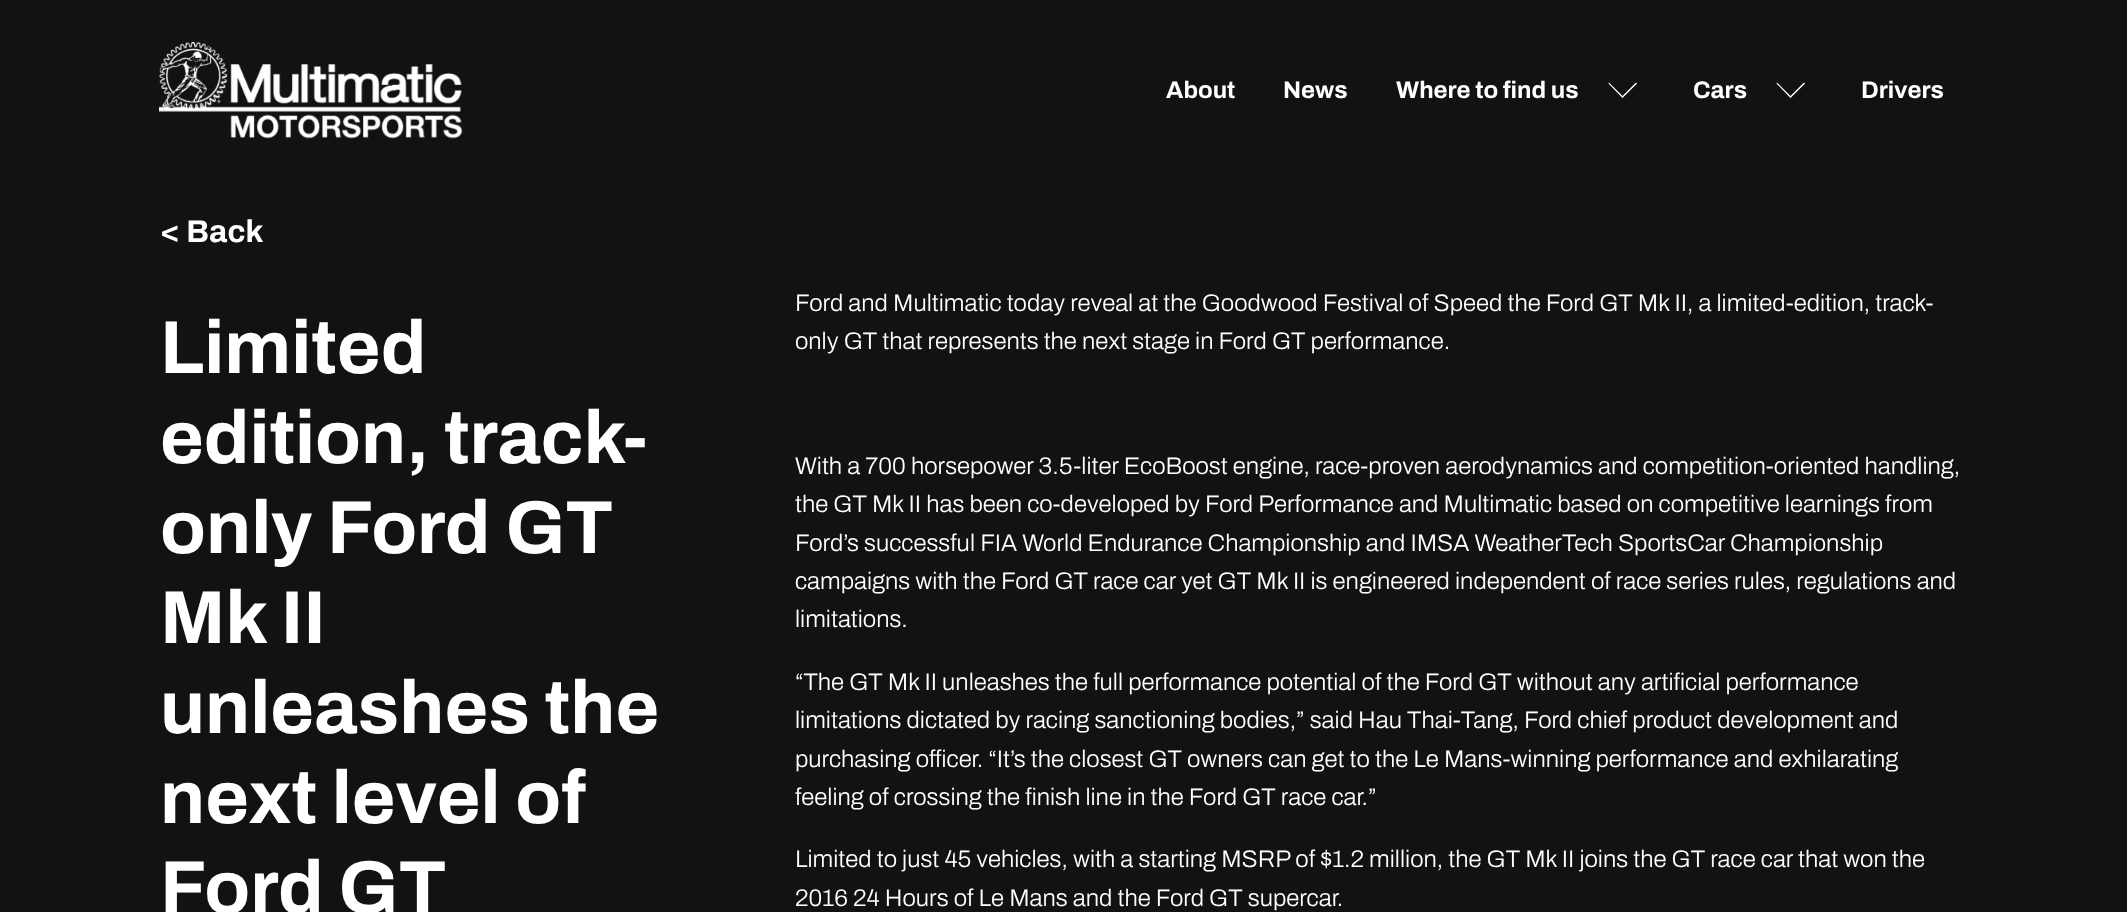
<svg xmlns="http://www.w3.org/2000/svg" xmlns:xlink="http://www.w3.org/1999/xlink" width="2127" height="912" viewBox="0 0 2127 912">
<style>
.cls-1{font:bold 24px Archivo;fill:#ffffff}
.cls-2{font:bold 31.5px Archivo;fill:#ffffff}
.cls-3{font:bold 75px Archivo;fill:#ffffff}
.cls-4{font:300 24px Archivo;fill:#ffffff}
</style>
<rect width="100%" height="100%" fill="#121212"/>
<image xlink:href="image0.png" x="159" y="42" width="304" height="97"/>
<path fill="#ffffff" d="M1608.5 83.5L1609 82.5L1622.5 96L1636 82.5L1637 83.5L1622.5 98Z"/>
<path fill="#ffffff" d="M1776.5 83.5L1777 82.5L1790.5 96L1804 82.5L1805 83.5L1790.5 98Z"/>
<text class="cls-1" x="1166" y="98">About</text>
<text class="cls-1" x="1283" y="98">News</text>
<text class="cls-1" x="1396" y="98">Where to find us</text>
<text class="cls-1" x="1693" y="98">Cars</text>
<text class="cls-1" x="1861" y="98">Drivers</text>
<text class="cls-2" x="160" y="242">&lt; Back</text>
<text class="cls-3"><tspan x="160" y="373">Limited</tspan><tspan x="160" y="463">edition, track-</tspan><tspan x="160" y="553">only Ford GT</tspan><tspan x="160" y="643">Mk II</tspan><tspan x="160" y="733">unleashes the</tspan><tspan x="160" y="823">next level of</tspan><tspan x="160" y="913">Ford GT</tspan></text>
<text class="cls-4"><tspan x="795" y="311">Ford and Multimatic today reveal at the Goodwood Festival of Speed the Ford GT Mk II, a limited-edition, track-</tspan><tspan x="795" y="349">only GT that represents the next stage in Ford GT performance.</tspan></text>
<text class="cls-4"><tspan x="795" y="474">With a 700 horsepower 3.5-liter EcoBoost engine, race-proven aerodynamics and competition-oriented handling,</tspan><tspan x="795" y="512">the GT Mk II has been co-developed by Ford Performance and Multimatic based on competitive learnings from</tspan><tspan x="795" y="551">Ford’s successful FIA World Endurance Championship and IMSA WeatherTech SportsCar Championship</tspan><tspan x="795" y="589">campaigns with the Ford GT race car yet GT Mk II is engineered independent of race series rules, regulations and</tspan><tspan x="795" y="627">limitations.</tspan></text>
<text class="cls-4"><tspan x="795" y="690">“The GT Mk II unleashes the full performance potential of the Ford GT without any artificial performance</tspan><tspan x="795" y="728">limitations dictated by racing sanctioning bodies,” said Hau Thai-Tang, Ford chief product development and</tspan><tspan x="795" y="767">purchasing officer. “It’s the closest GT owners can get to the Le Mans-winning performance and exhilarating</tspan><tspan x="795" y="805">feeling of crossing the finish line in the Ford GT race car.”</tspan></text>
<text class="cls-4"><tspan x="795" y="867">Limited to just 45 vehicles, with a starting MSRP of $1.2 million, the GT Mk II joins the GT race car that won the</tspan><tspan x="795" y="906">2016 24 Hours of Le Mans and the Ford GT supercar.</tspan></text>
</svg>
